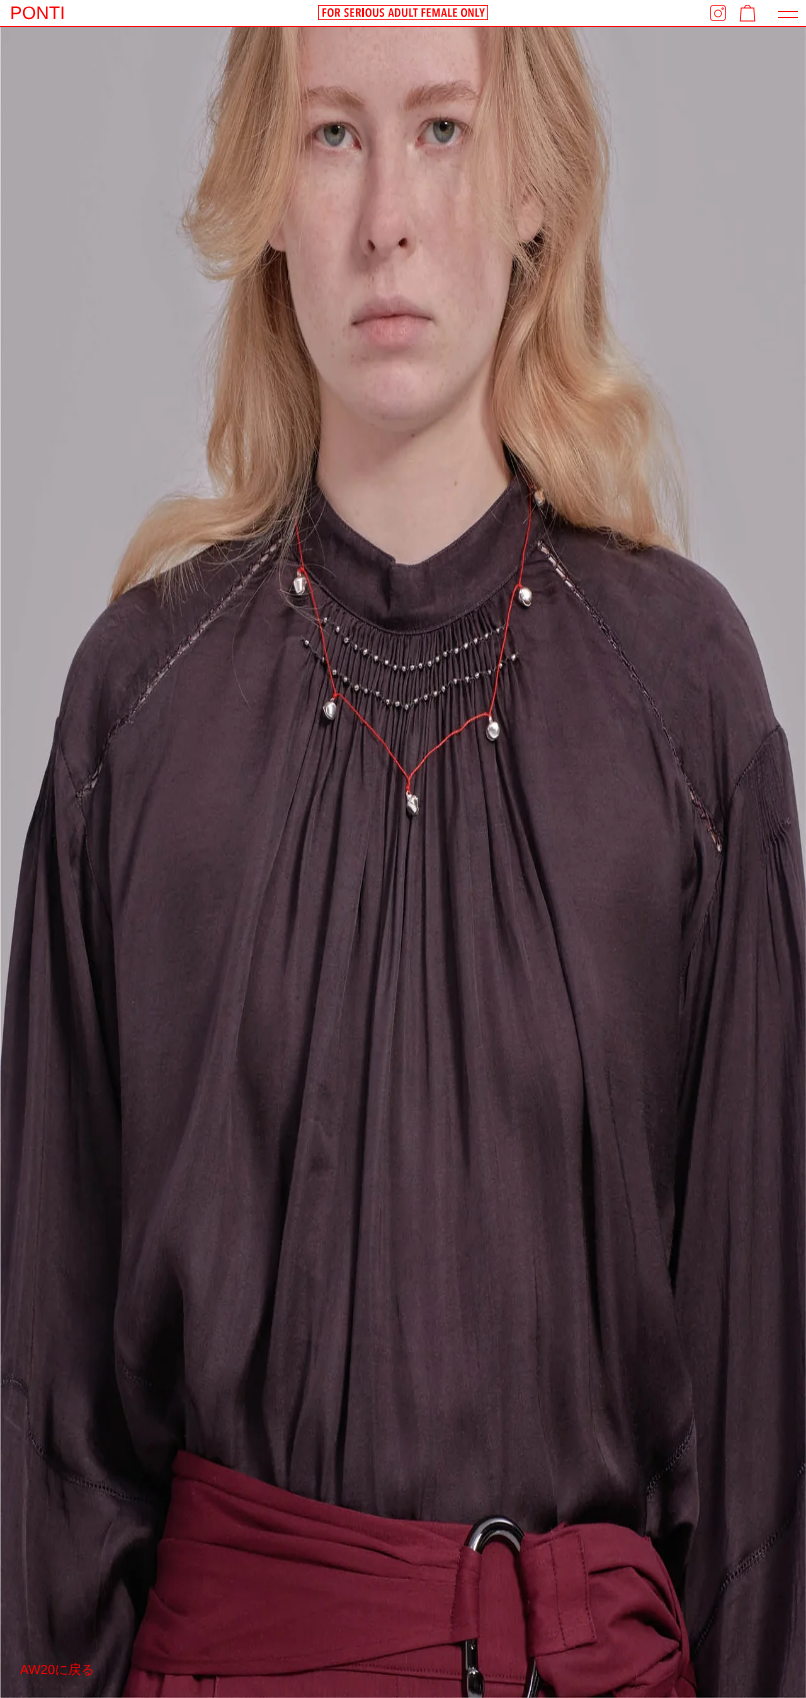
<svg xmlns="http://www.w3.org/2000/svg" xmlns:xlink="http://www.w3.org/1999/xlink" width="806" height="1698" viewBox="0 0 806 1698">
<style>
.cls-1{font:18px Liberation Sans;fill:#ff0000}
.cls-2{font:13px Liberation Sans;fill:#ff0000}
.cls-3{font:500 13px WenQuanYi Zen Hei;fill:#ff0000}
</style>
<rect width="100%" height="100%" fill="#ffffff"/>
<rect fill="#ff0000" x="0" y="26" width="806" height="1"/>
<image xlink:href="image0.png" x="318" y="5" width="170" height="15"/>
<image xlink:href="image1.png" x="710" y="5" width="16" height="16"/>
<image xlink:href="image2.png" x="739" y="5" width="17" height="17"/>
<rect fill="#ff0000" x="778" y="11" width="20" height="1"/>
<rect fill="#ff0000" x="778" y="17" width="20" height="1"/>
<image xlink:href="image3.png" x="0" y="27" width="806" height="1671"/>
<text class="cls-1" x="10" y="19">PONTI</text>
<text class="cls-2" x="20" y="1674">AW20</text>
<text class="cls-3" x="55" y="1674">に戻る</text>
</svg>
